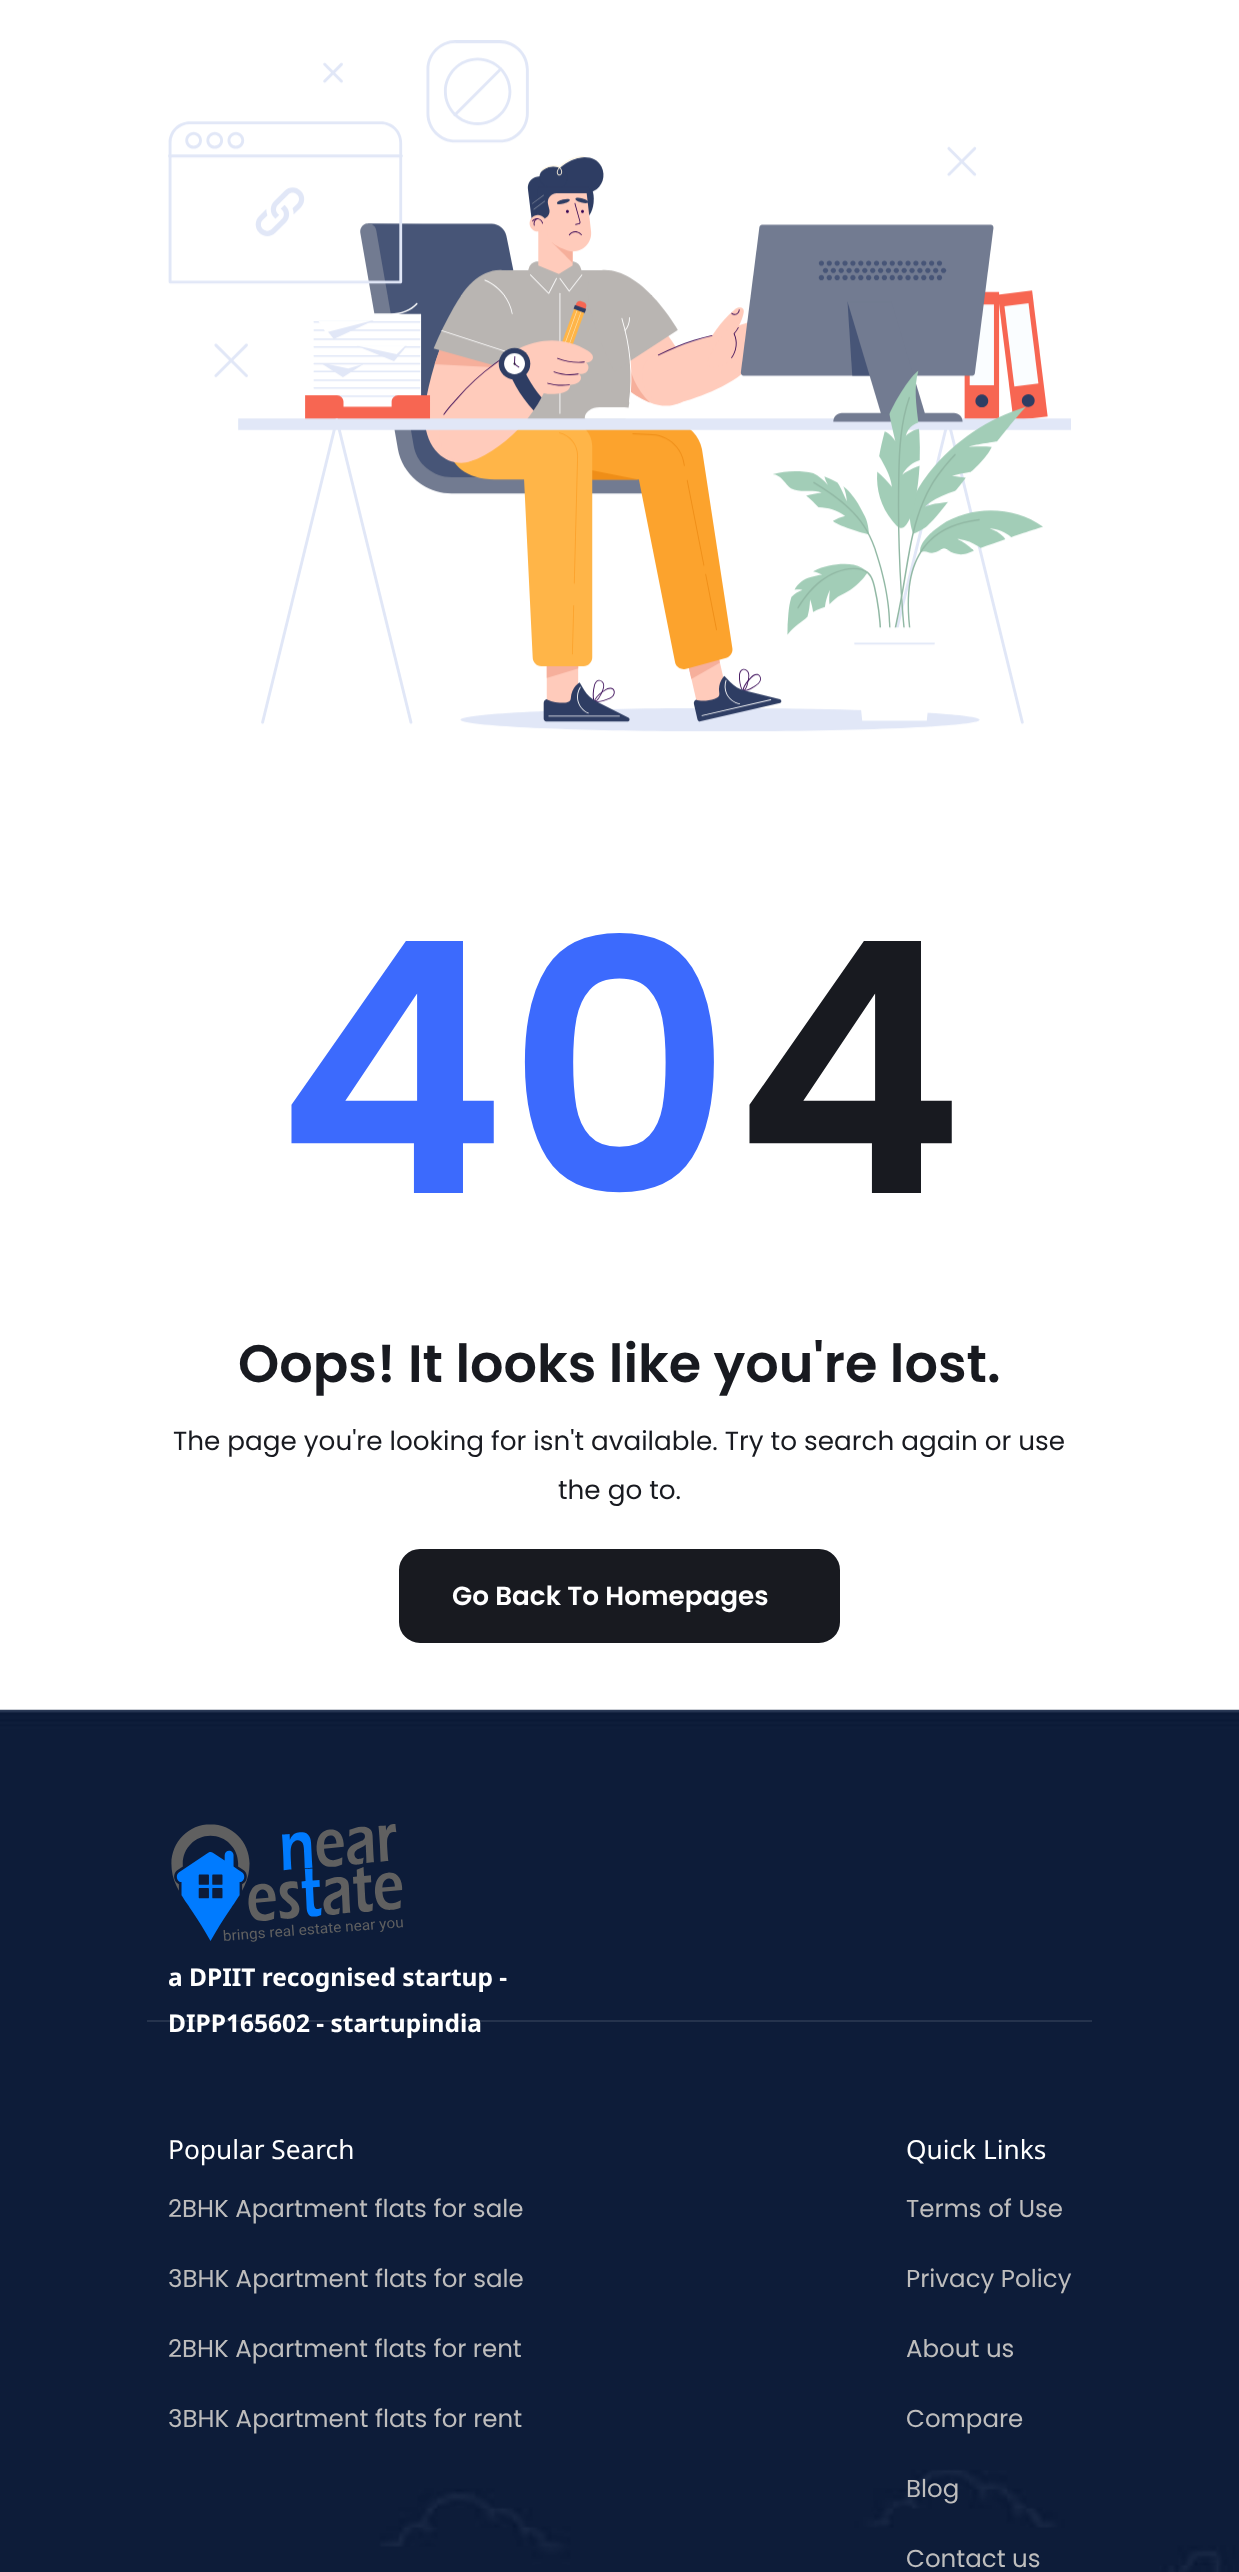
<svg xmlns="http://www.w3.org/2000/svg" xmlns:xlink="http://www.w3.org/1999/xlink" width="1239" height="2572" viewBox="0 0 1239 2572">
<style>
.cls-1{font:600 350px Poppins;fill:#3c6afd}
.cls-2{font:600 350px Poppins;fill:#181a20}
.cls-3{font:600 52.5px Poppins;fill:#181a20}
.cls-4{font:26.25px Poppins;fill:#181a20}
.cls-5{font:600 26.25px Poppins;fill:#ffffff}
.cls-6{font:bold 24.5px Noto Sans;fill:#ffffff}
.cls-7{font:26.25px Noto Sans;fill:#ffffff}
.cls-8{font:24.5px Poppins;fill:#bebdbd}
</style>
<rect width="100%" height="100%" fill="#ffffff"/>
<image xlink:href="image0.png" x="168" y="40" width="903" height="692"/>
<rect fill="#181a20" stroke="#181a20" stroke-width="2" x="400" y="1550" width="439" height="92" rx="20"/>
<image xlink:href="image1.png" x="0" y="1709" width="1239" height="863"/>
<rect fill="#25334d" x="147" y="2020" width="945" height="2"/>
<image xlink:href="image2.png" x="171" y="1824" width="232" height="118"/>
<text class="cls-1" x="275" y="1193">40</text>
<text class="cls-2" x="733" y="1193">4</text>
<text class="cls-3" x="238" y="1382">Oops! It looks like you're lost.</text>
<text class="cls-4" x="173" y="1450">The page you're looking for isn't available. Try to search again or use</text>
<text class="cls-4" x="558" y="1499">the go to.</text>
<text class="cls-5" x="452" y="1605">Go Back To Homepages</text>
<text class="cls-6"><tspan x="168" y="1986">a DPIIT recognised startup -</tspan><tspan x="168" y="2032">DIPP165602 - startupindia</tspan></text>
<text class="cls-7" x="168" y="2159">Popular Search</text>
<text class="cls-8" x="168" y="2217">2BHK Apartment flats for sale</text>
<text class="cls-8" x="168" y="2287">3BHK Apartment flats for sale</text>
<text class="cls-8" x="168" y="2357">2BHK Apartment flats for rent</text>
<text class="cls-8" x="168" y="2427">3BHK Apartment flats for rent</text>
<text class="cls-7" x="906" y="2159">Quick Links</text>
<text class="cls-8" x="906" y="2217">Terms of Use</text>
<text class="cls-8" x="906" y="2287">Privacy Policy</text>
<text class="cls-8" x="906" y="2357">About us</text>
<text class="cls-8" x="906" y="2427">Compare</text>
<text class="cls-8" x="906" y="2497">Blog</text>
<text class="cls-8" x="906" y="2567">Contact us</text>
</svg>
